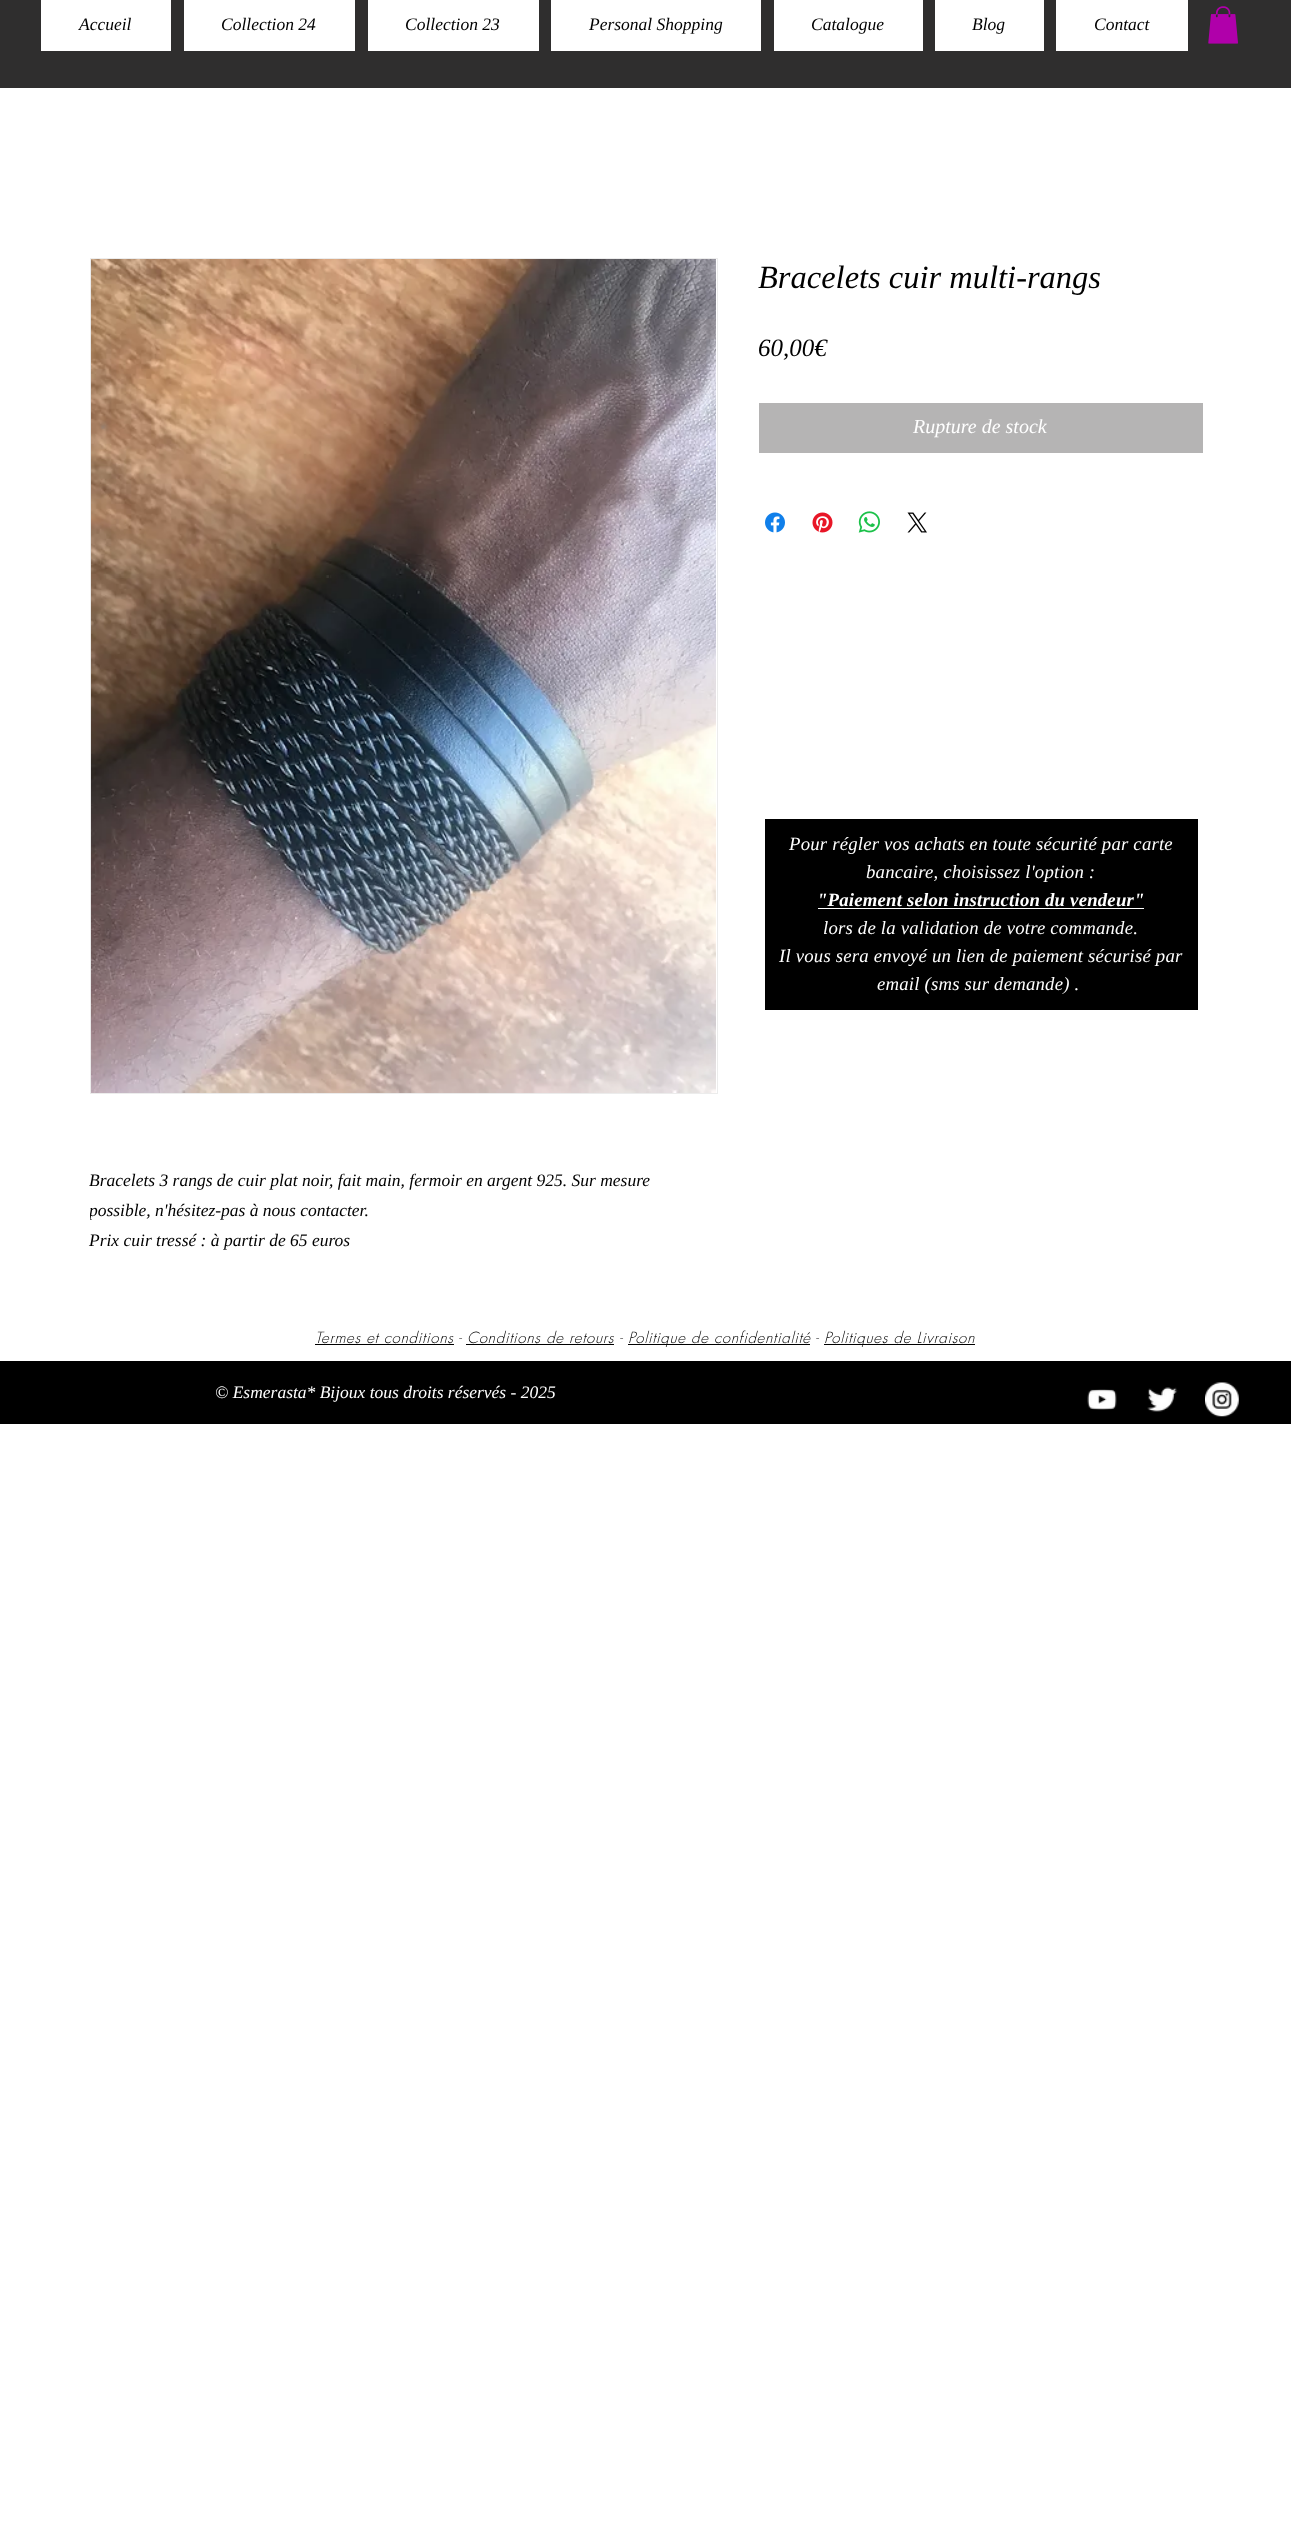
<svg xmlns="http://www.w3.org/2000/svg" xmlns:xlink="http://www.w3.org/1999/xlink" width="1291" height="2522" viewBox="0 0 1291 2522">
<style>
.cls-1{font:italic 17.5px Liberation Serif;fill:#000000}
.cls-2{font:italic 32.5px Liberation Serif;fill:#000000}
.cls-3{font:italic 25px Liberation Serif;fill:#000000}
.cls-4{font:italic 20px Liberation Serif;fill:#ffffff}
.cls-5{font:italic 18.75px Liberation Serif;letter-spacing:0.2px;fill:#ffffff}
.cls-6{font:italic bold 18.75px Liberation Serif;letter-spacing:0.2px;fill:#ffffff}
.cls-7{font:italic 300 15px futura;letter-spacing:0.75px;fill:#000000}
.cls-8{font:italic 17.5px Liberation Serif;fill:#ffffff}
</style>
<defs>
<clipPath id="clip1"><rect x="90" y="1166" width="625" height="90"/></clipPath>
</defs>
<rect width="100%" height="100%" fill="#ffffff"/>
<rect fill="#2f2e2e" x="0" y="0" width="1291" height="88"/>
<rect fill="#ffffff" x="41" y="0" width="130" height="51"/>
<rect fill="#ffffff" x="184" y="0" width="171" height="51"/>
<rect fill="#ffffff" x="368" y="0" width="171" height="51"/>
<rect fill="#ffffff" x="551" y="0" width="210" height="51"/>
<rect fill="#ffffff" x="774" y="0" width="149" height="51"/>
<rect fill="#ffffff" x="935" y="0" width="109" height="51"/>
<rect fill="#ffffff" x="1056" y="0" width="132" height="51"/>
<image xlink:href="image0.png" x="1208" y="6" width="30" height="38"/>
<rect fill="#b5b4b4" x="759" y="403" width="444" height="50"/>
<image xlink:href="image1.png" x="765" y="512" width="20" height="21"/>
<image xlink:href="image2.png" x="812" y="512" width="21" height="21"/>
<image xlink:href="image3.png" x="858" y="511" width="22" height="22"/>
<image xlink:href="image4.png" x="907" y="512" width="20" height="21"/>
<rect fill="none" stroke="#ececec" x="90.5" y="258.5" width="627" height="835"/>
<image xlink:href="image5.png" x="91" y="259" width="625" height="834"/>
<rect fill="#000000" x="765" y="819" width="433" height="191"/>
<rect fill="#ffffff" x="818" y="908" width="326" height="1"/>
<rect fill="#000000" x="315" y="1344" width="139" height="1"/>
<rect fill="#000000" x="466" y="1344" width="148" height="1"/>
<rect fill="#000000" x="628" y="1344" width="182" height="1"/>
<rect fill="#000000" x="824" y="1344" width="151" height="1"/>
<rect fill="#000000" x="0" y="1361" width="1291" height="63"/>
<image xlink:href="image6.png" x="1087" y="1389" width="30" height="21"/>
<image xlink:href="image7.png" x="1147" y="1387" width="31" height="25"/>
<image xlink:href="image8.png" x="1205" y="1382" width="34" height="35"/>
<text class="cls-1" x="79" y="30">Accueil</text>
<text class="cls-1" x="221" y="30">Collection 24</text>
<text class="cls-1" x="405" y="30">Collection 23</text>
<text class="cls-1" x="589" y="30">Personal Shopping</text>
<text class="cls-1" x="811" y="30">Catalogue</text>
<text class="cls-1" x="972" y="30">Blog</text>
<text class="cls-1" x="1094" y="30">Contact</text>
<text class="cls-2" x="758" y="288">Bracelets cuir multi-rangs</text>
<text class="cls-3" x="758" y="356">60,00€</text>
<text class="cls-4" x="913" y="433">Rupture de stock</text>
<text class="cls-1" x="89" y="1186">Bracelets 3 rangs de cuir plat noir, fait main, fermoir en argent 925. Sur mesure</text>
<g clip-path="url(#clip1)">
<text class="cls-1" x="89" y="1216">possible, n'hésitez-pas à nous contacter.</text>
</g>
<text class="cls-1" x="89" y="1246">Prix cuir tressé : à partir de 65 euros</text>
<text class="cls-5" x="789" y="850">Pour régler vos achats en toute sécurité par carte</text>
<text class="cls-5" x="866" y="878">bancaire, choisissez l'option :</text>
<text class="cls-6" x="817" y="906">"Paiement selon instruction du vendeur"</text>
<text class="cls-5" x="823" y="934">lors de la validation de votre commande.</text>
<text class="cls-5" x="779" y="962">Il vous sera envoyé un lien de paiement sécurisé par</text>
<text class="cls-5" x="877" y="990">email (sms sur demande) .</text>
<text class="cls-7" x="315" y="1343">Termes et conditions</text>
<text class="cls-7" x="458" y="1343">-</text>
<text class="cls-7" x="467" y="1343">Conditions de retours</text>
<text class="cls-7" x="619" y="1343">-</text>
<text class="cls-7" x="628" y="1343">Politique de confidentialité</text>
<text class="cls-7" x="815" y="1343">-</text>
<text class="cls-7" x="824" y="1343">Politiques de Livraison</text>
<text class="cls-8" x="215" y="1398">© Esmerasta* Bijoux tous droits réservés - 2025</text>
</svg>
